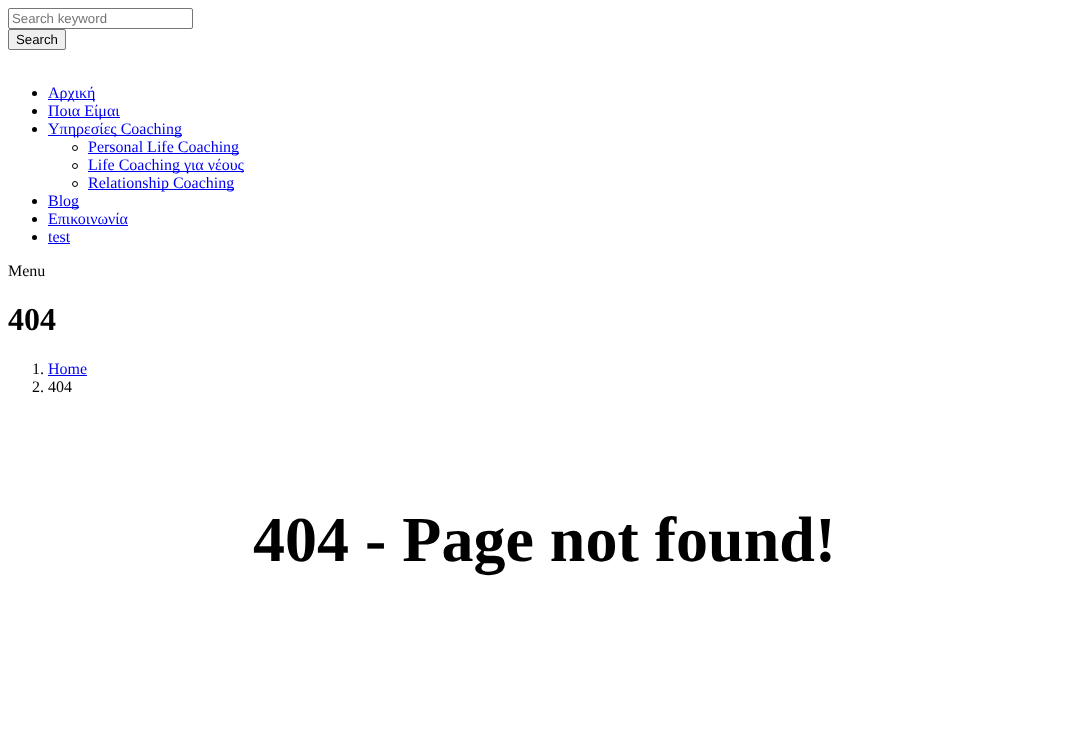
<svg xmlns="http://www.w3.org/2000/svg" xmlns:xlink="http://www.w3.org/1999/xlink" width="1090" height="752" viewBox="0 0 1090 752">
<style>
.cls-1{font:13.25px Liberation Sans;fill:#757575}
.cls-2{font:13.25px Liberation Sans;fill:#000000}
.cls-3{font:16px Liberation Serif;fill:#0000ee}
.cls-4{font:16px Liberation Serif;fill:#000000}
.cls-5{font:bold 32px Liberation Serif;fill:#000000}
.cls-6{font:bold 64px Liberation Serif;fill:#000000}
</style>
<rect width="100%" height="100%" fill="#ffffff"/>
<rect fill="none" stroke="#767676" x="8.5" y="8.5" width="184" height="20" rx="1.5"/>
<rect fill="#efefef" stroke="#767676" x="8.5" y="29.5" width="57" height="20" rx="1.5"/>
<circle fill="#000000" cx="34.5" cy="93.5" r="2.5"/>
<rect fill="#0000ee" x="48" y="99" width="47" height="1"/>
<circle fill="#000000" cx="34.5" cy="111.5" r="2.5"/>
<rect fill="#0000ee" x="48" y="117" width="72" height="1"/>
<circle fill="#000000" cx="34.5" cy="129.5" r="2.5"/>
<rect fill="#0000ee" x="48" y="135" width="134" height="1"/>
<circle fill="none" stroke="#000000" cx="75" cy="148" r="2.5"/>
<rect fill="#0000ee" x="88" y="153" width="151" height="1"/>
<circle fill="none" stroke="#000000" cx="75" cy="166" r="2.5"/>
<rect fill="#0000ee" x="88" y="171" width="156" height="1"/>
<circle fill="none" stroke="#000000" cx="75" cy="184" r="2.5"/>
<rect fill="#0000ee" x="88" y="189" width="146" height="1"/>
<circle fill="#000000" cx="34.5" cy="201.5" r="2.5"/>
<rect fill="#0000ee" x="48" y="207" width="31" height="1"/>
<circle fill="#000000" cx="34.5" cy="219.5" r="2.5"/>
<rect fill="#0000ee" x="48" y="225" width="80" height="1"/>
<circle fill="#000000" cx="34.5" cy="237.5" r="2.5"/>
<rect fill="#0000ee" x="48" y="243" width="22" height="1"/>
<rect fill="#0000ee" x="48" y="375" width="39" height="1"/>
<text class="cls-1" x="12" y="23">Search keyword</text>
<text class="cls-2" x="16" y="44">Search</text>
<text class="cls-3"><tspan x="48" y="98">Αρχική</tspan><tspan x="48" y="116">Ποια Είμαι</tspan><tspan x="48" y="134">Υπηρεσίες Coaching</tspan></text>
<text class="cls-3"><tspan x="88" y="152">Personal Life Coaching</tspan><tspan x="88" y="170">Life Coaching για νέους</tspan><tspan x="88" y="188">Relationship Coaching</tspan></text>
<text class="cls-3"><tspan x="48" y="206">Blog</tspan><tspan x="48" y="224">Επικοινωνία</tspan><tspan x="48" y="242">test</tspan></text>
<text class="cls-4" x="8" y="276">Menu</text>
<text class="cls-5" x="8" y="330">404</text>
<text class="cls-4" x="32" y="374">1.</text>
<text class="cls-3" x="48" y="374">Home</text>
<text class="cls-4" x="32" y="392">2. 404</text>
<text class="cls-6" x="253" y="561">404 - Page not found!</text>
</svg>
